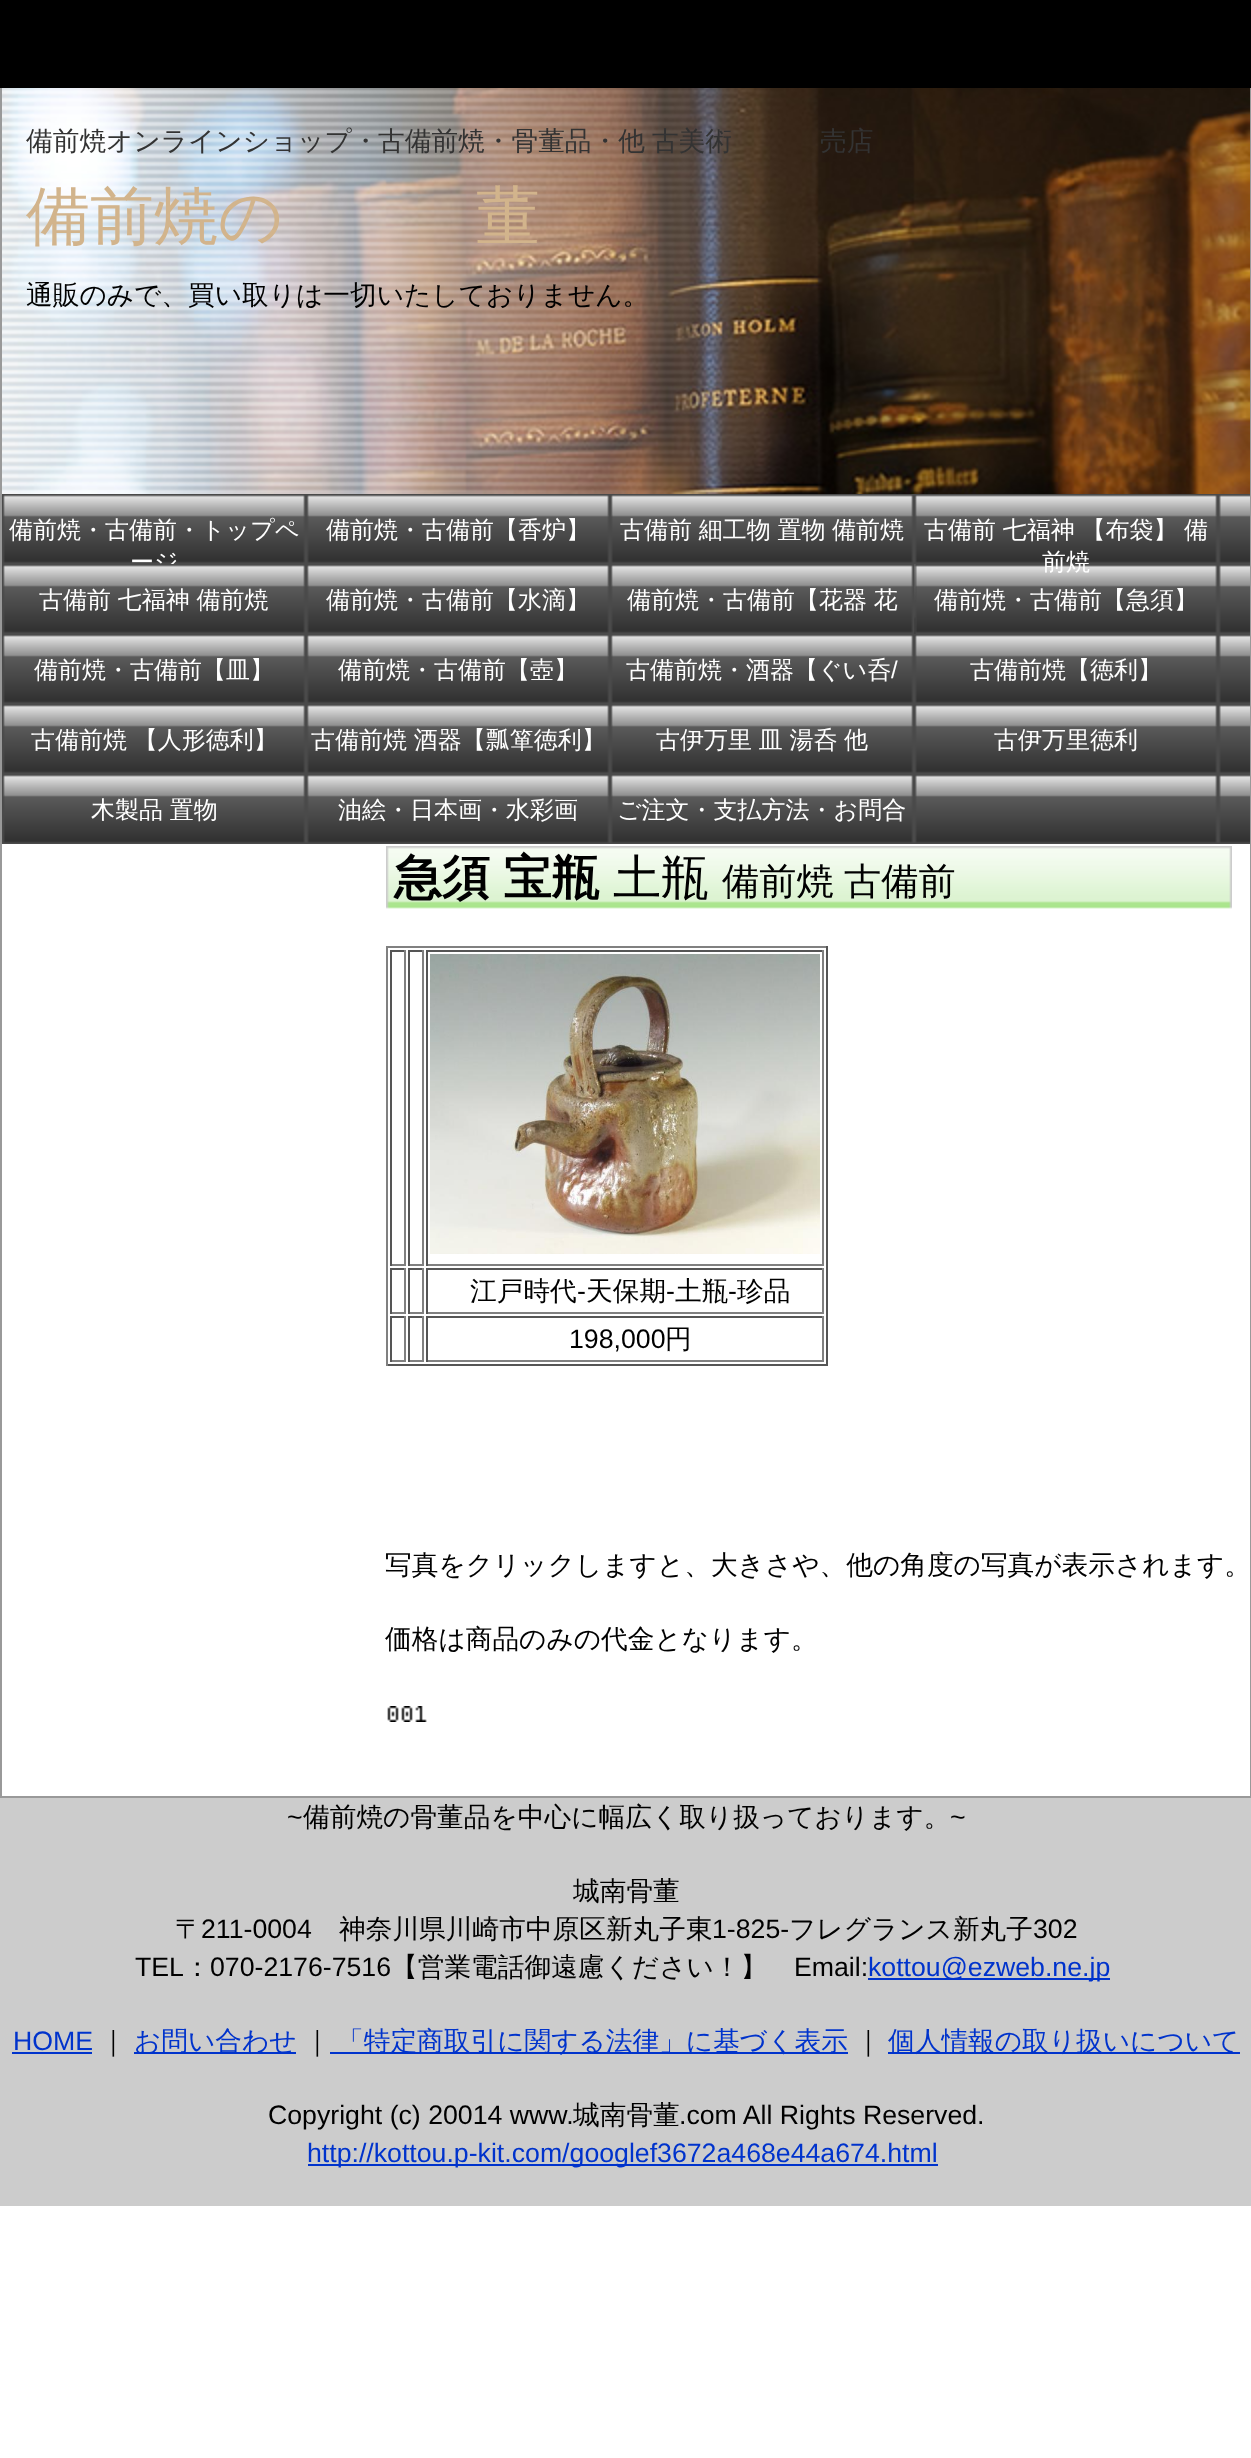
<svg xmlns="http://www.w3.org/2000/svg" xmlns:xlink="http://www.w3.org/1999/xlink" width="1251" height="2458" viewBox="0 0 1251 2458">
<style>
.cls-1{font:500 26.7px WenQuanYi Zen Hei;fill:#333333}
.cls-2{font:500 64px WenQuanYi Zen Hei;fill:#d2b48c}
.cls-3{font:500 26.7px WenQuanYi Zen Hei;fill:#000000}
.cls-4{font:500 24px WenQuanYi Zen Hei;fill:#ffffff}
.cls-5{font:24px Liberation Sans;fill:#ffffff}
.cls-6{font:bold 48px WenQuanYi Zen Hei;fill:#000000}
.cls-7{font:500 48px WenQuanYi Zen Hei;fill:#000000}
.cls-8{font:500 37.25px WenQuanYi Zen Hei;fill:#000000}
.cls-9{font:26.7px Liberation Sans;fill:#000000}
.cls-10{font:26.7px Liberation Sans;fill:#0033cc}
.cls-11{font:500 26.7px WenQuanYi Zen Hei;fill:#0033cc}
</style>
<rect width="100%" height="100%" fill="#ffffff"/>
<rect fill="none" stroke="#999999" stroke-width="2" x="1" y="1" width="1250" height="1796"/>
<rect fill="#000000" x="0" y="0" width="1251" height="88"/>
<rect fill="#cccccc" x="0" y="1798" width="1251" height="408"/>
<image xlink:href="image0.png" x="2" y="88" width="1248" height="406"/>
<image xlink:href="image1.png" x="2" y="494" width="1248" height="350"/>
<image xlink:href="image2.png" x="4" y="495" width="301" height="20"/>
<image xlink:href="image2.png" x="308" y="495" width="301" height="20"/>
<image xlink:href="image2.png" x="612" y="495" width="301" height="20"/>
<image xlink:href="image2.png" x="916" y="495" width="301" height="20"/>
<image xlink:href="image2.png" x="308" y="565" width="301" height="20"/>
<image xlink:href="image2.png" x="612" y="565" width="301" height="20"/>
<image xlink:href="image4.png" x="914" y="564" width="2" height="70"/>
<image xlink:href="image2.png" x="4" y="635" width="301" height="20"/>
<image xlink:href="image2.png" x="308" y="635" width="301" height="20"/>
<image xlink:href="image3.png" x="612" y="634" width="301" height="21"/>
<image xlink:href="image2.png" x="916" y="635" width="301" height="20"/>
<image xlink:href="image2.png" x="4" y="705" width="301" height="20"/>
<image xlink:href="image2.png" x="308" y="705" width="301" height="20"/>
<image xlink:href="image3.png" x="612" y="704" width="301" height="21"/>
<image xlink:href="image2.png" x="916" y="705" width="301" height="20"/>
<image xlink:href="image2.png" x="4" y="775" width="301" height="20"/>
<image xlink:href="image2.png" x="308" y="775" width="301" height="20"/>
<image xlink:href="image2.png" x="612" y="775" width="301" height="20"/>
<image xlink:href="image5.png" x="386" y="846" width="836" height="63"/>
<image xlink:href="image6.png" x="1222" y="846" width="10" height="63"/>
<rect fill="#808080" x="386" y="946" width="442" height="2"/>
<rect fill="#555555" x="826" y="946" width="2" height="420"/>
<rect fill="#555555" x="386" y="1364" width="442" height="2"/>
<rect fill="#808080" x="386" y="946" width="2" height="420"/>
<rect fill="#555555" x="390" y="950" width="16" height="2"/>
<rect fill="#808080" x="404" y="950" width="2" height="316"/>
<rect fill="#808080" x="390" y="1264" width="16" height="2"/>
<rect fill="#555555" x="390" y="950" width="2" height="316"/>
<rect fill="#555555" x="408" y="950" width="16" height="2"/>
<rect fill="#808080" x="422" y="950" width="2" height="316"/>
<rect fill="#808080" x="408" y="1264" width="16" height="2"/>
<rect fill="#555555" x="408" y="950" width="2" height="316"/>
<rect fill="#555555" x="426" y="950" width="398" height="2"/>
<rect fill="#808080" x="822" y="950" width="2" height="316"/>
<rect fill="#808080" x="426" y="1264" width="398" height="2"/>
<rect fill="#555555" x="426" y="950" width="2" height="316"/>
<image xlink:href="image7.png" x="430" y="954" width="390" height="300"/>
<rect fill="#555555" x="390" y="1268" width="16" height="2"/>
<rect fill="#808080" x="404" y="1268" width="2" height="46"/>
<rect fill="#808080" x="390" y="1312" width="16" height="2"/>
<rect fill="#555555" x="390" y="1268" width="2" height="46"/>
<rect fill="#555555" x="408" y="1268" width="16" height="2"/>
<rect fill="#808080" x="422" y="1268" width="2" height="46"/>
<rect fill="#808080" x="408" y="1312" width="16" height="2"/>
<rect fill="#555555" x="408" y="1268" width="2" height="46"/>
<rect fill="#555555" x="426" y="1268" width="398" height="2"/>
<rect fill="#808080" x="822" y="1268" width="2" height="46"/>
<rect fill="#808080" x="426" y="1312" width="398" height="2"/>
<rect fill="#555555" x="426" y="1268" width="2" height="46"/>
<rect fill="#555555" x="390" y="1316" width="16" height="2"/>
<rect fill="#808080" x="404" y="1316" width="2" height="46"/>
<rect fill="#808080" x="390" y="1360" width="16" height="2"/>
<rect fill="#555555" x="390" y="1316" width="2" height="46"/>
<rect fill="#555555" x="408" y="1316" width="16" height="2"/>
<rect fill="#808080" x="422" y="1316" width="2" height="46"/>
<rect fill="#808080" x="408" y="1360" width="16" height="2"/>
<rect fill="#555555" x="408" y="1316" width="2" height="46"/>
<rect fill="#555555" x="426" y="1316" width="398" height="2"/>
<rect fill="#808080" x="822" y="1316" width="2" height="46"/>
<rect fill="#808080" x="426" y="1360" width="398" height="2"/>
<rect fill="#555555" x="426" y="1316" width="2" height="46"/>
<image xlink:href="image8.png" x="387" y="1706" width="40" height="16"/>
<rect fill="#0033cc" x="868" y="1978" width="242" height="2"/>
<rect fill="#0033cc" x="12" y="2052" width="80" height="2"/>
<rect fill="#0033cc" x="134" y="2052" width="162" height="2"/>
<rect fill="#0033cc" x="330" y="2052" width="518" height="2"/>
<rect fill="#0033cc" x="888" y="2052" width="352" height="2"/>
<rect fill="#0033cc" x="308" y="2164" width="630" height="2"/>
<text class="cls-1" x="26" y="150">備前焼オンラインショップ・</text>
<text class="cls-1" x="378" y="150" word-spacing="-1">古備前焼・骨董品・他 古美術</text>
<text class="cls-1" x="820" y="150" word-spacing="-1">売店</text>
<text class="cls-2" x="26" y="238">備前焼の</text>
<text class="cls-2" x="476" y="238">董</text>
<text class="cls-3" x="26" y="304">通販のみで、買い取りは一切いたしておりません。</text>
<text class="cls-4" x="9" y="538">備前焼・古備前・トップペ</text>
<text class="cls-4" x="130" y="570">ージ</text>
<text class="cls-4" x="326" y="538">備前焼・古備前【香炉】</text>
<text class="cls-4" x="620" y="538" word-spacing="-0.5">古備前 細工物 置物 備前焼</text>
<text class="cls-4" x="924" y="538" word-spacing="-0.5">古備前 七福神 【布袋】 備</text>
<text class="cls-4" x="1042" y="570">前焼</text>
<image xlink:href="image3.png" x="4" y="564" width="301" height="21"/>
<text class="cls-4" x="39" y="608" word-spacing="-0.5">古備前 七福神 備前焼</text>
<text class="cls-4" x="326" y="608">備前焼・古備前【水滴】</text>
<text class="cls-4" x="627" y="608" word-spacing="-0.5">備前焼・古備前【花器 花</text>
<text class="cls-4" x="934" y="608">備前焼・古備前【急須】</text>
<text class="cls-4" x="34" y="678">備前焼・古備前【皿】</text>
<text class="cls-4" x="338" y="678">備前焼・古備前【壺】</text>
<text class="cls-4" x="626" y="678">古備前焼・酒器【ぐい呑</text>
<text class="cls-5" x="891" y="678">/</text>
<text class="cls-4" x="970" y="678">古備前焼【徳利】</text>
<text class="cls-4" x="31" y="748" word-spacing="-0.5">古備前焼 【人形徳利】</text>
<text class="cls-4" x="311" y="748" word-spacing="-0.5">古備前焼 酒器【瓢箪徳利】</text>
<text class="cls-4" x="656" y="748" word-spacing="-0.5">古伊万里 皿 湯呑 他</text>
<text class="cls-4" x="994" y="748">古伊万里徳利</text>
<text class="cls-4" x="91" y="818" word-spacing="-0.5">木製品 置物</text>
<text class="cls-4" x="338" y="818">油絵・日本画・水彩画</text>
<text class="cls-4" x="617" y="818">ご注文・支払方法・お問合</text>
<text class="cls-6" x="394" y="894" word-spacing="-1">急須 宝瓶</text>
<text class="cls-7" x="613" y="894">土瓶</text>
<text class="cls-8" x="722" y="894" word-spacing="-1">備前焼 古備前</text>
<text class="cls-3" x="470" y="1300">江戸時代</text>
<text class="cls-9" x="577" y="1300">-</text>
<text class="cls-3" x="586" y="1300">天保期</text>
<text class="cls-9" x="666" y="1300">-</text>
<text class="cls-3" x="675" y="1300">土瓶</text>
<text class="cls-9" x="728" y="1300">-</text>
<text class="cls-3" x="737" y="1300">珍品</text>
<text class="cls-9" x="569" y="1348">198,000</text>
<text class="cls-3" x="665" y="1348">円</text>
<text class="cls-3" x="385" y="1574">写真をクリックしますと、大きさや、他の角度の写真が表示されます。</text>
<text class="cls-3" x="385" y="1648">価格は商品のみの代金となります。</text>
<text class="cls-9" x="287" y="1826">~</text>
<text class="cls-3" x="303" y="1826">備前焼の骨董品を中心に幅広く取り扱っております。</text>
<text class="cls-9" x="950" y="1826">~</text>
<text class="cls-3" x="573" y="1900">城南骨董</text>
<text class="cls-3" x="175" y="1938">〒</text>
<text class="cls-9" x="201" y="1938">211-0004</text>
<text class="cls-3" x="339" y="1938">神奈川県川崎市中原区新丸子東</text>
<text class="cls-9" x="712" y="1938">1-825-</text>
<text class="cls-3" x="789" y="1938">フレグランス新丸子</text>
<text class="cls-9" x="1033" y="1938">302</text>
<text class="cls-9" x="135" y="1976">TEL</text>
<text class="cls-3" x="184" y="1976">：</text>
<text class="cls-9" x="210" y="1976">070-2176-7516</text>
<text class="cls-3" x="391" y="1976">【営業電話御遠慮ください！】</text>
<text class="cls-9" x="794" y="1976">Email:</text>
<text class="cls-10" x="868" y="1976">kottou@ezweb.ne.jp</text>
<text class="cls-10" x="13" y="2050">HOME</text>
<text class="cls-3" x="100" y="2050">｜</text>
<text class="cls-11" x="134" y="2050">お問い合わせ</text>
<text class="cls-3" x="304" y="2050">｜</text>
<text class="cls-11" x="337" y="2050">「特定商取引に関する法律」に基づく表示</text>
<text class="cls-3" x="855" y="2050">｜</text>
<text class="cls-11" x="888" y="2050">個人情報の取り扱いについて</text>
<text class="cls-9" x="268" y="2124">Copyright (c) 20014 www.</text>
<text class="cls-3" x="573" y="2124">城南骨董</text>
<text class="cls-9" x="679" y="2124">.com All Rights Reserved.</text>
<text class="cls-10" x="307" y="2162">http://kottou.p-kit.com/googlef3672a468e44a674.html</text>
</svg>
